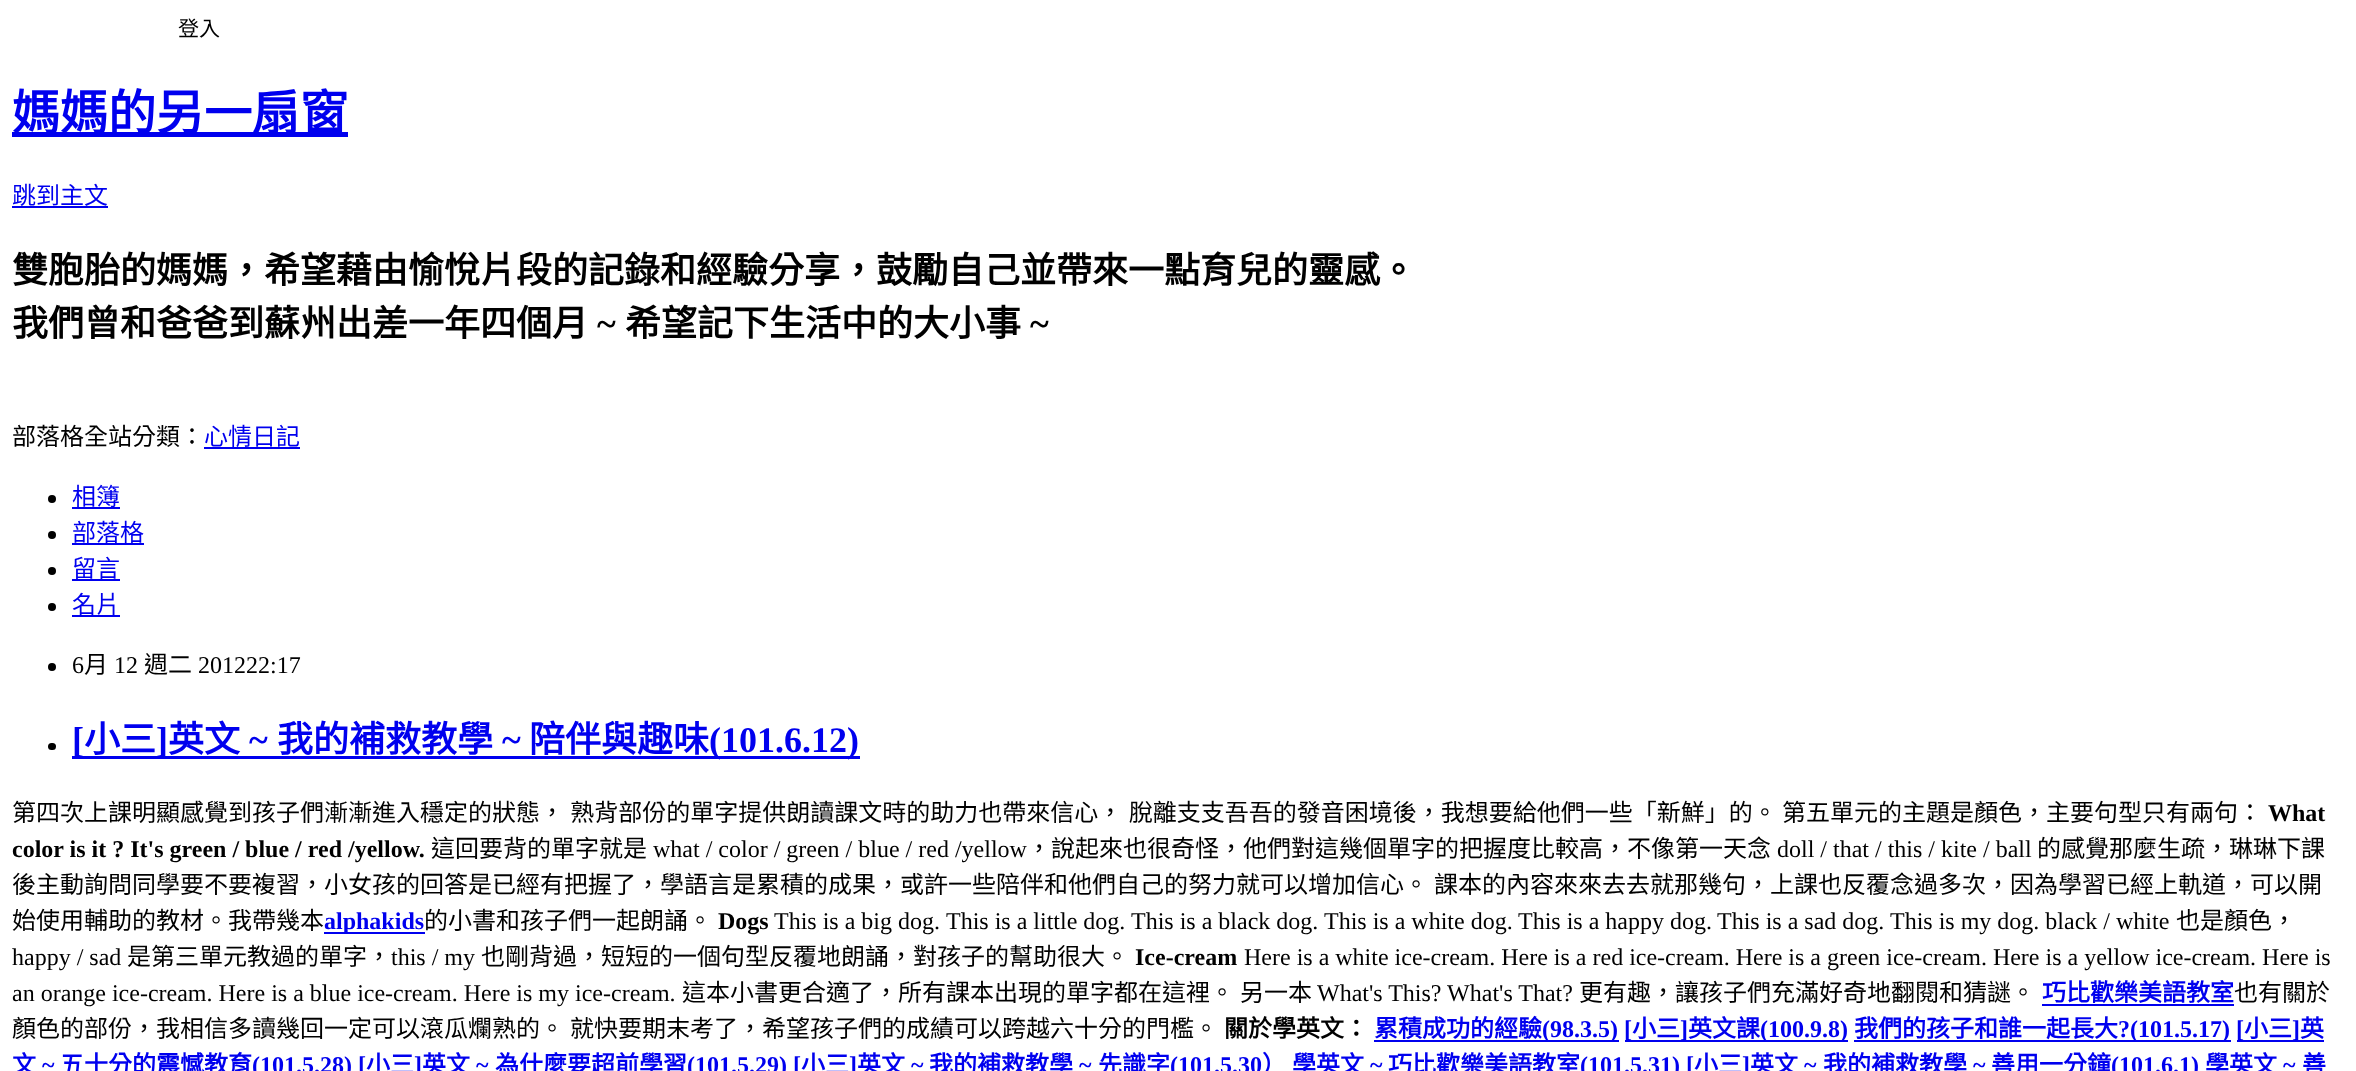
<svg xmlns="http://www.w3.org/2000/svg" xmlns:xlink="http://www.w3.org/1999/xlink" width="2356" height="1071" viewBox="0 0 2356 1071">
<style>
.cls-1{font:21px Noto Sans CJK TC;fill:#000000}
.cls-2{font:bold 48px Noto Sans CJK TC;fill:#0000ee}
.cls-3{font:24px Noto Sans CJK TC;fill:#0000ee}
.cls-4{font:bold 36px Noto Sans CJK TC;fill:#000000}
.cls-5{font:bold 36px Liberation Serif;fill:#000000}
.cls-6{font:24px Noto Sans CJK TC;fill:#000000}
.cls-7{font:24px Liberation Serif;fill:#000000}
.cls-8{font:bold 36px Liberation Serif;fill:#0000ee}
.cls-9{font:bold 36px Noto Sans CJK TC;fill:#0000ee}
.cls-10{font:bold 24px Liberation Serif;fill:#000000}
.cls-11{font:bold 24px Liberation Serif;fill:#0000ee}
.cls-12{font:bold 24px Noto Sans CJK TC;fill:#0000ee}
.cls-13{font:bold 24px Noto Sans CJK TC;fill:#000000}
</style>
<rect width="100%" height="100%" fill="#ffffff"/>
<rect fill="#0000ee" x="12" y="132" width="336" height="5"/>
<rect fill="#0000ee" x="12" y="206" width="96" height="2"/>
<rect fill="#0000ee" x="204" y="447" width="96" height="2"/>
<circle fill="#000000" cx="52" cy="499" r="4"/>
<rect fill="#0000ee" x="72" y="507" width="48" height="2"/>
<circle fill="#000000" cx="52" cy="535" r="4"/>
<rect fill="#0000ee" x="72" y="543" width="72" height="2"/>
<circle fill="#000000" cx="52" cy="571" r="4"/>
<rect fill="#0000ee" x="72" y="579" width="48" height="2"/>
<circle fill="#000000" cx="52" cy="607" r="4"/>
<rect fill="#0000ee" x="72" y="615" width="48" height="2"/>
<circle fill="#000000" cx="52" cy="667" r="4"/>
<rect fill="#000000" x="48" y="743" width="8" height="7" rx="3.5"/>
<rect fill="#0000ee" x="72" y="756" width="788" height="3"/>
<rect fill="#0000ee" x="324" y="932" width="101" height="2"/>
<rect fill="#0000ee" x="2042" y="1004" width="192" height="2"/>
<rect fill="#0000ee" x="1374" y="1040" width="245" height="2"/>
<rect fill="#0000ee" x="1625" y="1040" width="223" height="2"/>
<rect fill="#0000ee" x="1854" y="1040" width="377" height="2"/>
<rect fill="#0000ee" x="2237" y="1040" width="87" height="2"/>
<text class="cls-1" x="178" y="36">登入</text>
<text class="cls-2" x="12" y="130">媽媽的另一扇窗</text>
<text class="cls-3" x="12" y="204">跳到主文</text>
<text class="cls-4"><tspan x="12" y="283">雙胞胎的媽媽，希望藉由愉悅片段的記錄和經驗分享，鼓勵自己並帶來一點育兒的靈感。</tspan><tspan x="12" y="336">我們曾和爸爸到蘇州出差一年四個月</tspan></text>
<text class="cls-5" x="597" y="336">~</text>
<text class="cls-4" x="625" y="336">希望記下生活中的大小事</text>
<text class="cls-5" x="1030" y="336">~</text>
<text class="cls-6" x="12" y="445">部落格全站分類：</text>
<text class="cls-3" x="204" y="445">心情日記</text>
<text class="cls-3"><tspan x="72" y="505">相簿</tspan><tspan x="72" y="541">部落格</tspan><tspan x="72" y="577">留言</tspan><tspan x="72" y="613">名片</tspan></text>
<text class="cls-7" x="72" y="673">6</text>
<text class="cls-6" x="84" y="673">月</text>
<text class="cls-7" x="114" y="673">12</text>
<text class="cls-6" x="144" y="673">週二</text>
<text class="cls-7" x="198" y="673">201222:17</text>
<text class="cls-8" x="72" y="752">[</text>
<text class="cls-9" x="84" y="752">小三</text>
<text class="cls-8" x="156" y="752">]</text>
<text class="cls-9" x="168" y="752">英文</text>
<text class="cls-8" x="249" y="752">~</text>
<text class="cls-9" x="277" y="752">我的補救教學</text>
<text class="cls-8" x="502" y="752">~</text>
<text class="cls-9" x="529" y="752">陪伴與趣味</text>
<text class="cls-8" x="709" y="752">(101.6.12)</text>
<text class="cls-6" x="12" y="821" word-spacing="1">第四次上課明顯感覺到孩子們漸漸進入穩定的狀態， 熟背部份的單字提供朗讀課文時的助力也帶來信心， 脫離支支吾吾的發音困境後，我想要給他們一些「新鮮」的。</text>
<text class="cls-6" x="1782" y="821">第五單元的主題是顏色，主要句型只有兩句：</text>
<text class="cls-10" x="2268" y="821">What</text>
<text class="cls-10" x="12" y="857">color is it ? It's green / blue / red /yellow.</text>
<text class="cls-6" x="431" y="857">這回要背的單字就是</text>
<text class="cls-7" x="653" y="857">what / color / green / blue / red /yellow</text>
<text class="cls-6" x="1027" y="857">，說起來也很奇怪，他們對這幾個單字的把握度比較高，不像第一天念</text>
<text class="cls-7" x="1777" y="857">doll / that / this / kite / ball</text>
<text class="cls-6" x="2037" y="857">的感覺那麼生疏，琳琳下課</text>
<text class="cls-6" x="12" y="893">後主動詢問同學要不要複習，小女孩的回答是已經有把握了，學語言是累積的成果，或許一些陪伴和他們自己的努力就可以增加信心。</text>
<text class="cls-6" x="1434" y="893">課本的內容來來去去就那幾句，上課也反覆念過多次，因為學習已經上軌道，可以開</text>
<text class="cls-6" x="12" y="929">始使用輔助的教材。我帶幾本</text>
<text class="cls-11" x="324" y="929">alphakids</text>
<text class="cls-6" x="424" y="929">的小書和孩子們一起朗誦。</text>
<text class="cls-10" x="718" y="929">Dogs</text>
<text class="cls-7" x="774" y="929">This is a big dog.</text>
<text class="cls-7" x="946" y="929">This is a little dog.</text>
<text class="cls-7" x="1131" y="929">This is a black dog.</text>
<text class="cls-7" x="1324" y="929">This is a white dog.</text>
<text class="cls-7" x="1518" y="929">This is a happy dog.</text>
<text class="cls-7" x="1717" y="929">This is a sad dog.</text>
<text class="cls-7" x="1890" y="929">This is my dog. black / white</text>
<text class="cls-6" x="2176" y="929">也是顏色，</text>
<text class="cls-7" x="12" y="965">happy / sad</text>
<text class="cls-6" x="127" y="965">是第三單元教過的單字，</text>
<text class="cls-7" x="391" y="965">this / my</text>
<text class="cls-6" x="481" y="965">也剛背過，短短的一個句型反覆地朗誦，對孩子的幫助很大。</text>
<text class="cls-10" x="1135" y="965">Ice-cream</text>
<text class="cls-7" x="1244" y="965">Here is a white ice-cream. Here is a red ice-cream. Here is a green ice-cream. Here is a yellow ice-cream. Here is</text>
<text class="cls-7" x="12" y="1001">an orange ice-cream. Here is a blue ice-cream. Here is my ice-cream.</text>
<text class="cls-6" x="682" y="1001">這本小書更合適了，所有課本出現的單字都在這裡。</text>
<text class="cls-6" x="1240" y="1001">另一本</text>
<text class="cls-7" x="1317" y="1001">What's This? What's That?</text>
<text class="cls-6" x="1579" y="1001">更有趣，讓孩子們充滿好奇地翻閱和猜謎。</text>
<text class="cls-12" x="2042" y="1001">巧比歡樂美語教室</text>
<text class="cls-6" x="2234" y="1001">也有關於</text>
<text class="cls-6" x="12" y="1037">顏色的部份，我相信多讀幾回一定可以滾瓜爛熟的。</text>
<text class="cls-6" x="570" y="1037">就快要期末考了，希望孩子們的成績可以跨越六十分的門檻。</text>
<text class="cls-13" x="1224" y="1037">關於學英文：</text>
<text class="cls-12" x="1374" y="1037">累積成功的經驗</text>
<text class="cls-11" x="1542" y="1037">(98.3.5)</text>
<text class="cls-11" x="1624" y="1037">[</text>
<text class="cls-12" x="1632" y="1037">小三</text>
<text class="cls-11" x="1680" y="1037">]</text>
<text class="cls-12" x="1688" y="1037">英文課</text>
<text class="cls-11" x="1760" y="1037">(100.9.8)</text>
<text class="cls-12" x="1854" y="1037">我們的孩子和誰一起長大</text>
<text class="cls-11" x="2118" y="1037">?(101.5.17)</text>
<text class="cls-11" x="2236" y="1037">[</text>
<text class="cls-12" x="2244" y="1037">小三</text>
<text class="cls-11" x="2292" y="1037">]</text>
<text class="cls-12" x="2300" y="1037">英</text>
<text class="cls-12" x="12" y="1073">文</text>
<text class="cls-11" x="42" y="1073">~</text>
<text class="cls-12" x="60" y="1073">五十分的震憾教育</text>
<text class="cls-11" x="252" y="1073">(101.5.28) [</text>
<text class="cls-12" x="366" y="1073">小三</text>
<text class="cls-11" x="414" y="1073">]</text>
<text class="cls-12" x="422" y="1073">英文</text>
<text class="cls-11" x="476" y="1073">~</text>
<text class="cls-12" x="495" y="1073">為什麼要超前學習</text>
<text class="cls-11" x="687" y="1073">(101.5.29) [</text>
<text class="cls-12" x="801" y="1073">小三</text>
<text class="cls-11" x="849" y="1073">]</text>
<text class="cls-12" x="857" y="1073">英文</text>
<text class="cls-11" x="911" y="1073">~</text>
<text class="cls-12" x="929" y="1073">我的補救教學</text>
<text class="cls-11" x="1079" y="1073">~</text>
<text class="cls-12" x="1098" y="1073">先識字</text>
<text class="cls-11" x="1170" y="1073">(101.5.30</text>
<text class="cls-12" x="1262" y="1073">）</text>
<text class="cls-12" x="1292" y="1073">學英文</text>
<text class="cls-11" x="1370" y="1073">~</text>
<text class="cls-12" x="1388" y="1073">巧比歡樂美語教室</text>
<text class="cls-11" x="1580" y="1073">(101.5.31) [</text>
<text class="cls-12" x="1694" y="1073">小三</text>
<text class="cls-11" x="1742" y="1073">]</text>
<text class="cls-12" x="1750" y="1073">英文</text>
<text class="cls-11" x="1804" y="1073">~</text>
<text class="cls-12" x="1823" y="1073">我的補救教學</text>
<text class="cls-11" x="1973" y="1073">~</text>
<text class="cls-12" x="1991" y="1073">善用一分鐘</text>
<text class="cls-11" x="2111" y="1073">(101.6.1)</text>
<text class="cls-12" x="2205" y="1073">學英文</text>
<text class="cls-11" x="2283" y="1073">~</text>
<text class="cls-12" x="2302" y="1073">善</text>
</svg>
